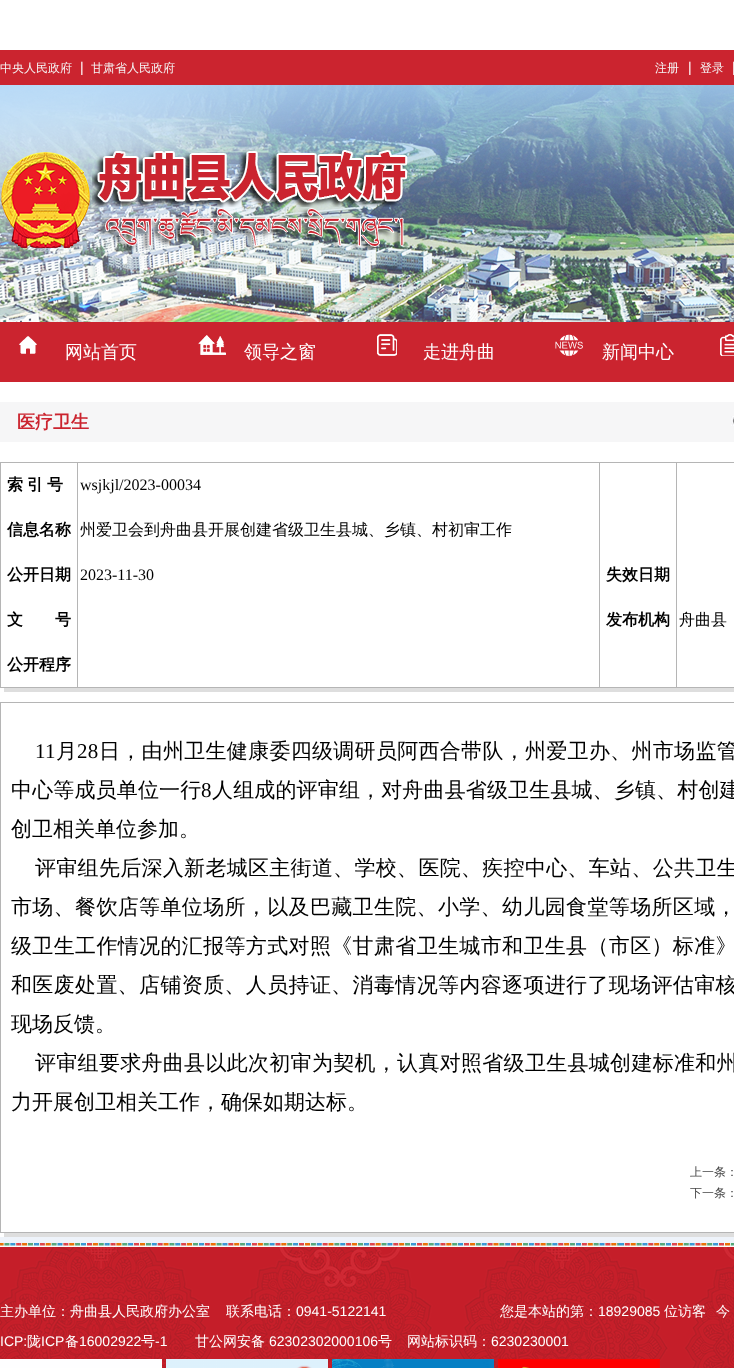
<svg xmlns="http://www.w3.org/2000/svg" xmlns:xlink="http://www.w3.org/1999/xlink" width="734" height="1368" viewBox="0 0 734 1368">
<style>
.cls-1{font:500 12px WenQuanYi Zen Hei;fill:#f5f5f5}
.cls-2{font:14px Liberation Sans;fill:#ffffff}
.cls-3{font:500 18px WenQuanYi Zen Hei;fill:#ffffff}
.cls-4{font:bold 18px WenQuanYi Zen Hei;fill:#cb242f}
.cls-5{font:bold 16px WenQuanYi Zen Hei;fill:#000000}
.cls-6{font:16px Liberation Serif;fill:#000000}
.cls-7{font:500 16px WenQuanYi Zen Hei;fill:#000000}
.cls-8{font:21px Liberation Serif;letter-spacing:0.3px;fill:#000000}
.cls-9{font:500 21px WenQuanYi Zen Hei;letter-spacing:0.3px;fill:#000000}
.cls-10{font:500 21px WenQuanYi Zen Hei;letter-spacing:0.15px;fill:#000000}
.cls-11{font:21px Liberation Serif;letter-spacing:0.15px;fill:#000000}
.cls-12{font:500 21px WenQuanYi Zen Hei;fill:#000000}
.cls-13{font:500 21px WenQuanYi Zen Hei;letter-spacing:0.35px;fill:#000000}
.cls-14{font:500 12px WenQuanYi Zen Hei;fill:#454545}
.cls-15{font:500 14px WenQuanYi Zen Hei;fill:#ffffff}
</style>
<rect width="100%" height="100%" fill="#ffffff"/>
<rect fill="#cb242f" x="0" y="50" width="734" height="35"/>
<image xlink:href="image0.png" x="0" y="85" width="734" height="237"/>
<image xlink:href="image1.png" x="1" y="150" width="407" height="100"/>
<rect fill="#cb242f" x="0" y="322" width="734" height="60"/>
<image xlink:href="image2.png" x="19" y="336" width="18" height="18"/>
<image xlink:href="image3.png" x="198" y="335" width="28" height="20"/>
<image xlink:href="image4.png" x="377" y="334" width="20" height="22"/>
<image xlink:href="image5.png" x="555" y="334" width="28" height="22"/>
<image xlink:href="image6.png" x="720" y="334" width="14" height="22"/>
<rect fill="#f6f6f7" x="0" y="402" width="734" height="40"/>
<image xlink:href="image7.png" x="731" y="416" width="3" height="10"/>
<rect fill="#dedede" x="4" y="688" width="730" height="4"/>
<rect fill="#b5b5b5" x="0" y="462" width="734" height="226"/>
<rect fill="#ffffff" x="1" y="463" width="76" height="224"/>
<rect fill="#ffffff" x="78" y="463" width="521" height="224"/>
<rect fill="#ffffff" x="600" y="463" width="76" height="224"/>
<rect fill="#ffffff" x="677" y="463" width="57" height="224"/>
<rect fill="#dedede" x="4" y="1233" width="730" height="4"/>
<rect fill="none" stroke="#b5b5b5" x="0.5" y="702.5" width="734" height="530"/>
<image xlink:href="image8.png" x="0" y="1237" width="734" height="131"/>
<rect fill="#fefeff" x="0" y="1359" width="162" height="9"/>
<image xlink:href="image9.png" x="166" y="1359" width="162" height="9"/>
<image xlink:href="image10.png" x="332" y="1359" width="162" height="9"/>
<image xlink:href="image11.png" x="498" y="1359" width="162" height="9"/>
<text class="cls-1" x="0" y="72">中央人民政府</text>
<text class="cls-2" x="80" y="72">|</text>
<text class="cls-1" x="91" y="72">甘肃省人民政府</text>
<text class="cls-1" x="655" y="72">注册</text>
<text class="cls-2" x="688" y="72">|</text>
<text class="cls-1" x="700" y="72">登录</text>
<text class="cls-2" x="732" y="72">|</text>
<text class="cls-3" x="65" y="358">网站首页</text>
<text class="cls-3" x="244" y="358">领导之窗</text>
<text class="cls-3" x="423" y="358">走进舟曲</text>
<text class="cls-3" x="602" y="358">新闻中心</text>
<text class="cls-4" x="17" y="428">医疗卫生</text>
<text class="cls-5" x="7" y="490">索</text>
<text class="cls-5" x="27" y="490">引</text>
<text class="cls-5" x="47" y="490">号</text>
<text class="cls-6" x="80" y="490">wsjkjl/2023-00034</text>
<text class="cls-5" x="7" y="535">信息名称</text>
<text class="cls-7" x="80" y="535">州爱卫会到舟曲县开展创建省级卫生县城、乡镇、村初审工作</text>
<text class="cls-5" x="7" y="580">公开日期</text>
<text class="cls-6" x="80" y="580">2023-11-30</text>
<text class="cls-5" x="606" y="580">失效日期</text>
<text class="cls-5" x="7" y="625">文　　号</text>
<text class="cls-5" x="606" y="625">发布机构</text>
<text class="cls-7" x="679" y="625">舟曲县</text>
<text class="cls-5" x="7" y="670">公开程序</text>
<text class="cls-8" x="35" y="758">11</text>
<text class="cls-9" x="56" y="758">月</text>
<text class="cls-8" x="77" y="758">28</text>
<text class="cls-9" x="99" y="758">日，由州卫生健康委四级调研员阿西合带队，州爱卫办、州市场监管</text>
<text class="cls-10" x="11" y="797">中心等成员单位一行</text>
<text class="cls-11" x="201" y="797">8</text>
<text class="cls-10" x="212" y="797">人组成的评审组，对舟曲县省级卫生县城、乡镇、村创建</text>
<text class="cls-12" x="11" y="836">创卫相关单位参加。</text>
<text class="cls-9" x="35" y="875">评审组先后深入新老城区主街道、学校、医院、疾控中心、车站、公共卫生</text>
<text class="cls-13"><tspan x="11" y="914">市场、餐饮店等单位场所，以及巴藏卫生院、小学、幼儿园食堂等场所区域，</tspan><tspan x="11" y="953">级卫生工作情况的汇报等方式对照《甘肃省卫生城市和卫生县（市区）标准》</tspan><tspan x="11" y="992">和医废处置、店铺资质、人员持证、消毒情况等内容逐项进行了现场评估审核</tspan></text>
<text class="cls-12" x="11" y="1031">现场反馈。</text>
<text class="cls-9" x="35" y="1070">评审组要求舟曲县以此次初审为契机，认真对照省级卫生县城创建标准和州</text>
<text class="cls-12" x="11" y="1109">力开展创卫相关工作，确保如期达标。</text>
<text class="cls-14"><tspan x="690" y="1176">上一条：</tspan><tspan x="690" y="1197">下一条：</tspan></text>
<text class="cls-15" x="0" y="1316">主办单位：舟曲县人民政府办公室</text>
<text class="cls-15" x="226" y="1316">联系电话：</text>
<text class="cls-2" x="296" y="1316">0941-5122141</text>
<text class="cls-2" x="0" y="1346">ICP:</text>
<text class="cls-15" x="27" y="1346">陇</text>
<text class="cls-2" x="41" y="1346">ICP</text>
<text class="cls-15" x="65" y="1346">备</text>
<text class="cls-2" x="79" y="1346">16002922</text>
<text class="cls-15" x="141" y="1346">号</text>
<text class="cls-2" x="155" y="1346">-1</text>
<text class="cls-15" x="195" y="1346">甘公网安备</text>
<text class="cls-2" x="269" y="1346">62302302000106</text>
<text class="cls-15" x="378" y="1346">号</text>
<text class="cls-15" x="407" y="1346">网站标识码：</text>
<text class="cls-2" x="491" y="1346">6230230001</text>
<text class="cls-15" x="500" y="1316">您是本站的第：</text>
<text class="cls-2" x="598" y="1316">18929085</text>
<text class="cls-15" x="664" y="1316">位访客</text>
<text class="cls-15" x="716" y="1316">今</text>
</svg>
